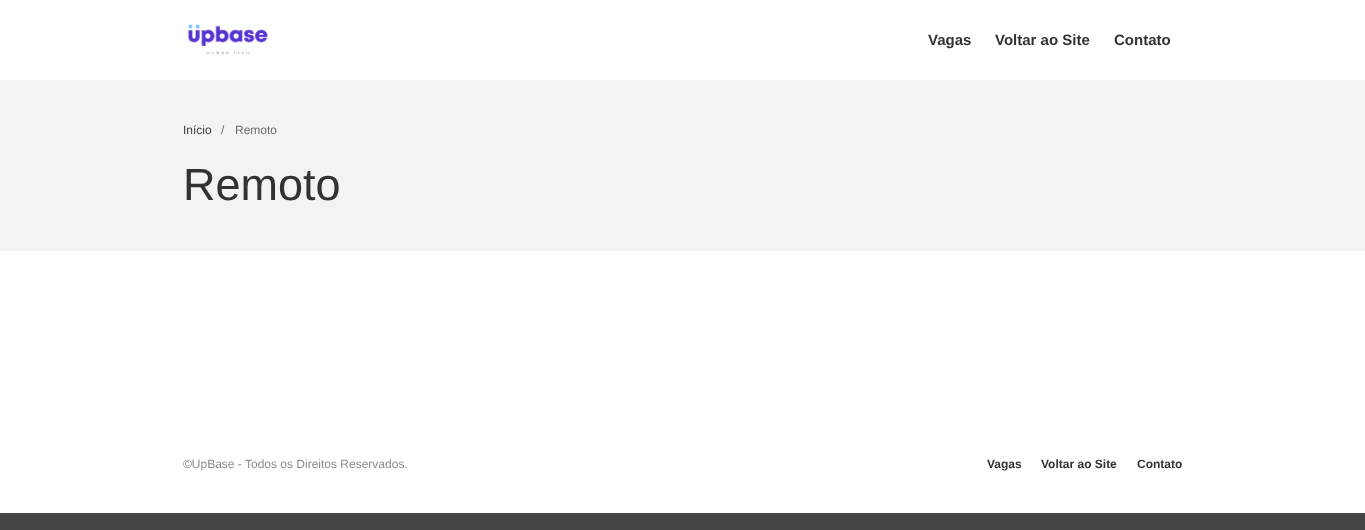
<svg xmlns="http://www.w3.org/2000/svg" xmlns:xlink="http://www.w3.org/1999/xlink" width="1365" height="530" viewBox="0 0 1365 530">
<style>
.cls-1{font:bold 15px Liberation Sans;fill:#323232}
.cls-2{font:12px Liberation Sans;fill:#3d3d3d}
.cls-3{font:12px Liberation Sans;fill:#6d6d6d}
.cls-4{font:45px Liberation Sans;fill:#323232}
.cls-5{font:12px Liberation Sans;fill:#8c8c8c}
.cls-6{font:bold 12px Liberation Sans;fill:#323232}
</style>
<rect width="100%" height="100%" fill="#454545"/>
<rect fill="#ffffff" x="0" y="0" width="1365" height="513"/>
<image xlink:href="image0.png" x="187" y="24" width="81" height="31"/>
<rect fill="#f3f3f3" x="0" y="80" width="1365" height="171"/>
<text class="cls-1" x="928" y="45">Vagas</text>
<text class="cls-1" x="995" y="45">Voltar ao Site</text>
<text class="cls-1" x="1114" y="45">Contato</text>
<text class="cls-2" x="183" y="134">Início</text>
<text class="cls-3" x="221" y="134">/</text>
<text class="cls-3" x="235" y="134">Remoto</text>
<text class="cls-4" x="183" y="200">Remoto</text>
<text class="cls-5" x="183" y="468">©UpBase - Todos os Direitos Reservados.</text>
<text class="cls-6" x="987" y="468">Vagas</text>
<text class="cls-6" x="1041" y="468">Voltar ao Site</text>
<text class="cls-6" x="1137" y="468">Contato</text>
</svg>
